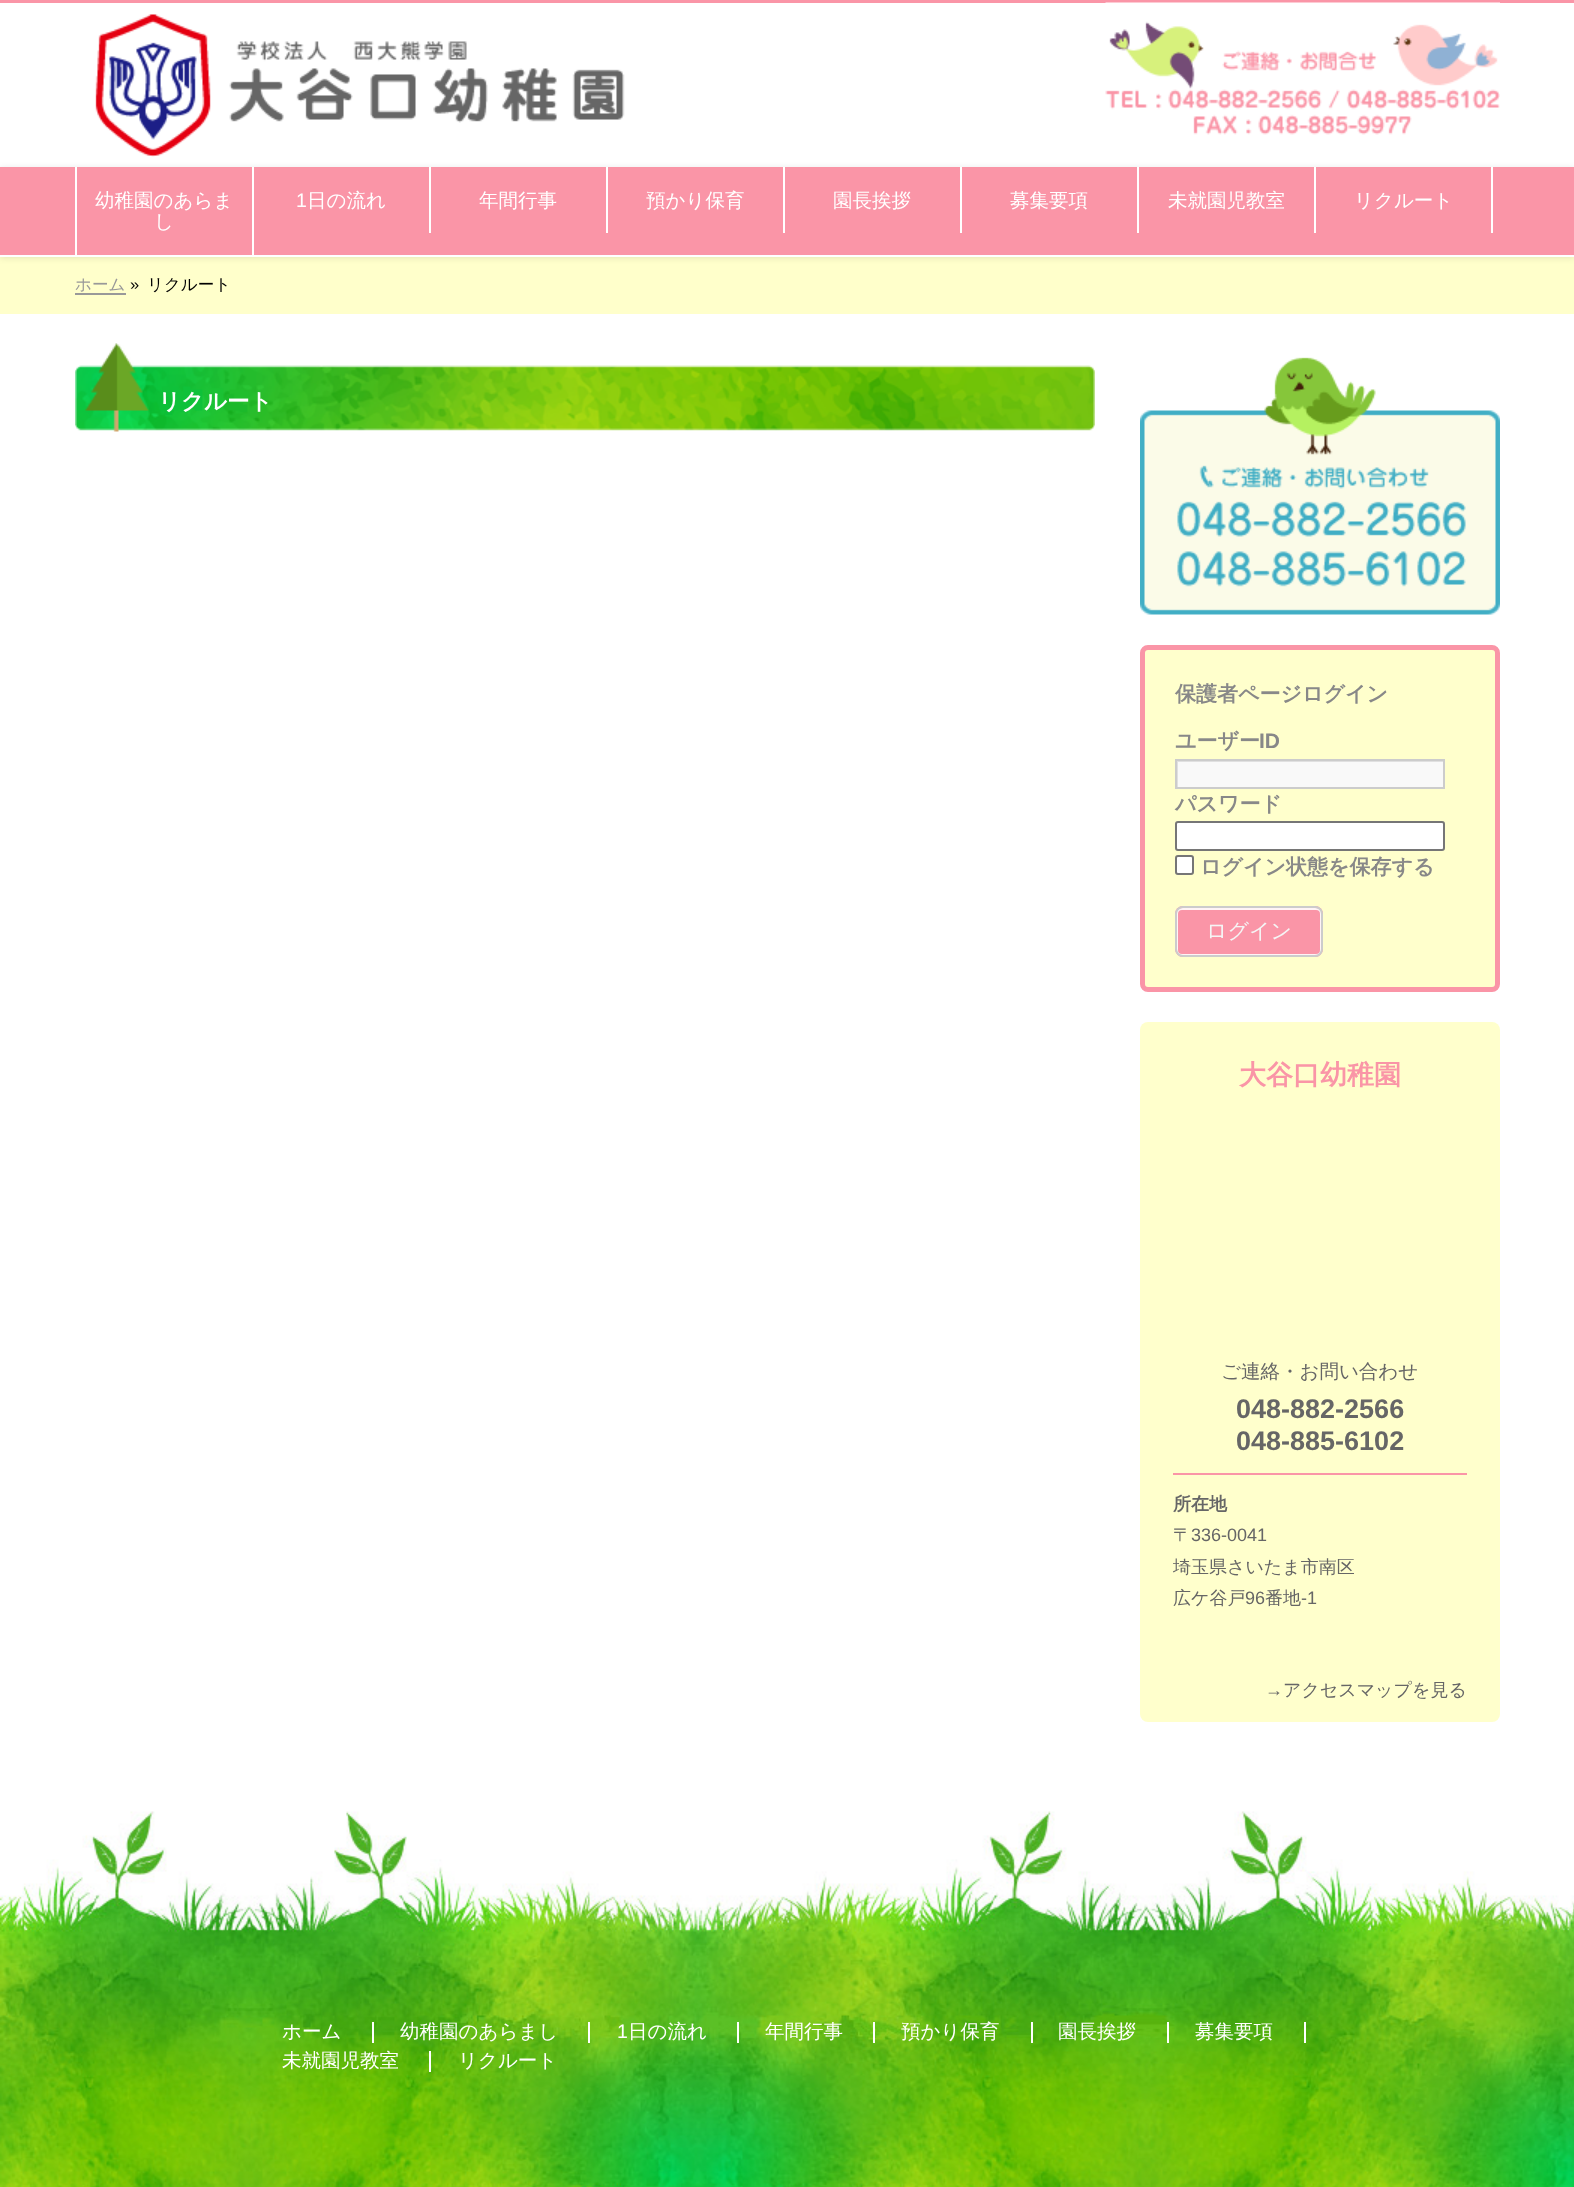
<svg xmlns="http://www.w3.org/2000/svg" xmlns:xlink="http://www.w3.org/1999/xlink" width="1574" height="2187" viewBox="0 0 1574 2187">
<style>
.cls-1{font:500 19.5px WenQuanYi Zen Hei;fill:#ffffff}
.cls-2{font:19.5px Liberation Sans;fill:#ffffff}
.cls-3{font:500 16.5px WenQuanYi Zen Hei;fill:#999999}
.cls-4{font:16.5px Liberation Sans;fill:#000000}
.cls-5{font:500 16.5px WenQuanYi Zen Hei;fill:#000000}
.cls-6{font:bold 22.5px WenQuanYi Zen Hei;fill:#ffffff}
.cls-7{font:bold 21px WenQuanYi Zen Hei;fill:#888888}
.cls-8{font:bold 21px Liberation Sans;fill:#888888}
.cls-9{font:500 21px WenQuanYi Zen Hei;fill:#f5f5f5}
.cls-10{font:bold 27px WenQuanYi Zen Hei;fill:#fa95a7}
.cls-11{font:500 19.5px WenQuanYi Zen Hei;fill:#666666}
.cls-12{font:bold 27px Liberation Sans;fill:#666666}
.cls-13{font:bold 18px WenQuanYi Zen Hei;fill:#666666}
.cls-14{font:500 18px WenQuanYi Zen Hei;fill:#666666}
.cls-15{font:18px Liberation Sans;fill:#666666}
</style>
<defs>
<clipPath id="clip1"><rect x="1176" y="761" width="267" height="27"/></clipPath>
</defs>
<rect width="100%" height="100%" fill="#ffffff"/>
<rect fill="#fa95a7" x="0" y="0" width="1574" height="3"/>
<image xlink:href="image0.png" x="95" y="14" width="530" height="143"/>
<image xlink:href="image1.png" x="1105" y="2" width="395" height="133"/>
<rect fill="#ffffcb" x="0" y="257" width="1574" height="57"/>
<rect fill="#000000" fill-opacity="0.1" filter="blur(3px)" x="0" y="168" width="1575" height="90"/>
<rect fill="#fa95a7" x="0" y="167" width="1574" height="88"/>
<rect fill="#ffffff" x="0" y="255" width="1574" height="2"/>
<rect fill="#ffffff" x="75" y="167" width="2" height="88"/>
<rect fill="#ffffff" x="252" y="167" width="2" height="88"/>
<rect fill="#ffffff" x="429" y="167" width="2" height="66"/>
<rect fill="#ffffff" x="606" y="167" width="2" height="66"/>
<rect fill="#ffffff" x="783" y="167" width="2" height="66"/>
<rect fill="#ffffff" x="960" y="167" width="2" height="66"/>
<rect fill="#ffffff" x="1137" y="167" width="2" height="66"/>
<rect fill="#ffffff" x="1314" y="167" width="2" height="66"/>
<rect fill="#ffffff" x="1491" y="167" width="2" height="66"/>
<rect fill="#999999" x="75" y="293" width="51" height="2"/>
<image xlink:href="image2.png" x="75" y="343" width="1020" height="89"/>
<image xlink:href="image3.png" x="1140" y="357" width="360" height="258"/>
<rect fill="#ffffcc" stroke="#fa95a7" stroke-width="5" x="1142.5" y="647.5" width="355" height="342" rx="5.5"/>
<rect fill="#f9f9f9" x="1178" y="762" width="265" height="25"/>
<g clip-path="url(#clip1)">
<path fill="#e0e0e0" fill-rule="evenodd" d="M1028 612H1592V936H1028ZM1178 762H1444V789H1178Z"/>
</g>
<rect fill="none" stroke="#cccccc" stroke-width="2" x="1176" y="760" width="268" height="28"/>
<rect fill="#ffffff" stroke="#767676" stroke-width="2" x="1176" y="822" width="268" height="28" rx="2"/>
<rect fill="#ffffff" stroke="#767676" stroke-width="2" x="1176" y="856" width="17" height="18" rx="2"/>
<rect fill="#fa95a7" x="1175" y="906" width="148" height="51" rx="8"/>
<rect fill="none" stroke="#fff4f6" stroke-width="2" x="1177" y="909" width="144" height="46" rx="5"/>
<rect fill="none" stroke="#cccccc" stroke-width="2" x="1176" y="907" width="146" height="49" rx="7"/>
<rect fill="#ffffcc" x="1140" y="1022" width="360" height="700" rx="8"/>
<rect fill="#fa95a7" x="1173" y="1473" width="294" height="2"/>
<image xlink:href="image4.png" x="0" y="1811" width="1574" height="376"/>
<rect fill="#ffffff" x="372" y="2022" width="2" height="21"/>
<rect fill="#ffffff" x="588" y="2022" width="2" height="21"/>
<rect fill="#ffffff" x="737" y="2022" width="2" height="21"/>
<rect fill="#ffffff" x="873" y="2022" width="2" height="21"/>
<rect fill="#ffffff" x="1031" y="2022" width="2" height="21"/>
<rect fill="#ffffff" x="1167" y="2022" width="2" height="21"/>
<rect fill="#ffffff" x="1304" y="2022" width="2" height="21"/>
<rect fill="#ffffff" x="429" y="2051" width="2" height="21"/>
<text class="cls-1" x="95" y="207">幼稚園のあらま</text>
<text class="cls-1" x="154" y="228">し</text>
<text class="cls-2" x="296" y="207">1</text>
<text class="cls-1" x="307" y="207">日の流れ</text>
<text class="cls-1" x="479" y="207">年間行事</text>
<text class="cls-1" x="646" y="207">預かり保育</text>
<text class="cls-1" x="833" y="207">園長挨拶</text>
<text class="cls-1" x="1010" y="207">募集要項</text>
<text class="cls-1" x="1168" y="207">未就園児教室</text>
<text class="cls-1" x="1354" y="207">リクルート</text>
<text class="cls-3" x="75" y="290">ホーム</text>
<text class="cls-4" x="130" y="290">»</text>
<text class="cls-5" x="147" y="290">リクルート</text>
<text class="cls-6" x="158" y="409">リクルート</text>
<text class="cls-7" x="1175" y="701">保護者ページログイン</text>
<text class="cls-7" x="1175" y="748">ユーザー</text>
<text class="cls-8" x="1259" y="748">ID</text>
<text class="cls-7" x="1175" y="811">パスワード</text>
<text class="cls-7" x="1200" y="874">ログイン状態を保存する</text>
<text class="cls-9" x="1206" y="938">ログイン</text>
<text class="cls-10" x="1239" y="1084">大谷口幼稚園</text>
<text class="cls-11" x="1221" y="1378">ご連絡・お問い合わせ</text>
<text class="cls-12"><tspan x="1236" y="1418">048-882-2566</tspan><tspan x="1236" y="1450">048-885-6102</tspan></text>
<text class="cls-13" x="1173" y="1510">所在地</text>
<text class="cls-14" x="1173" y="1541">〒</text>
<text class="cls-15" x="1191" y="1541">336-0041</text>
<text class="cls-14"><tspan x="1173" y="1573">埼玉県さいたま市南区</tspan><tspan x="1173" y="1604">広ケ谷戸</tspan></text>
<text class="cls-15" x="1245" y="1604">96</text>
<text class="cls-14" x="1265" y="1604">番地</text>
<text class="cls-15" x="1301" y="1604">-1</text>
<text class="cls-15" x="1265" y="1696">→</text>
<text class="cls-14" x="1283" y="1696">アクセスマップを見る</text>
<text class="cls-1" x="282" y="2038">ホーム</text>
<text class="cls-1" x="400" y="2038">幼稚園のあらまし</text>
<text class="cls-2" x="617" y="2038">1</text>
<text class="cls-1" x="628" y="2038">日の流れ</text>
<text class="cls-1" x="765" y="2038">年間行事</text>
<text class="cls-1" x="901" y="2038">預かり保育</text>
<text class="cls-1" x="1058" y="2038">園長挨拶</text>
<text class="cls-1" x="1195" y="2038">募集要項</text>
<text class="cls-1" x="282" y="2067">未就園児教室</text>
<text class="cls-1" x="458" y="2067">リクルート</text>
</svg>
